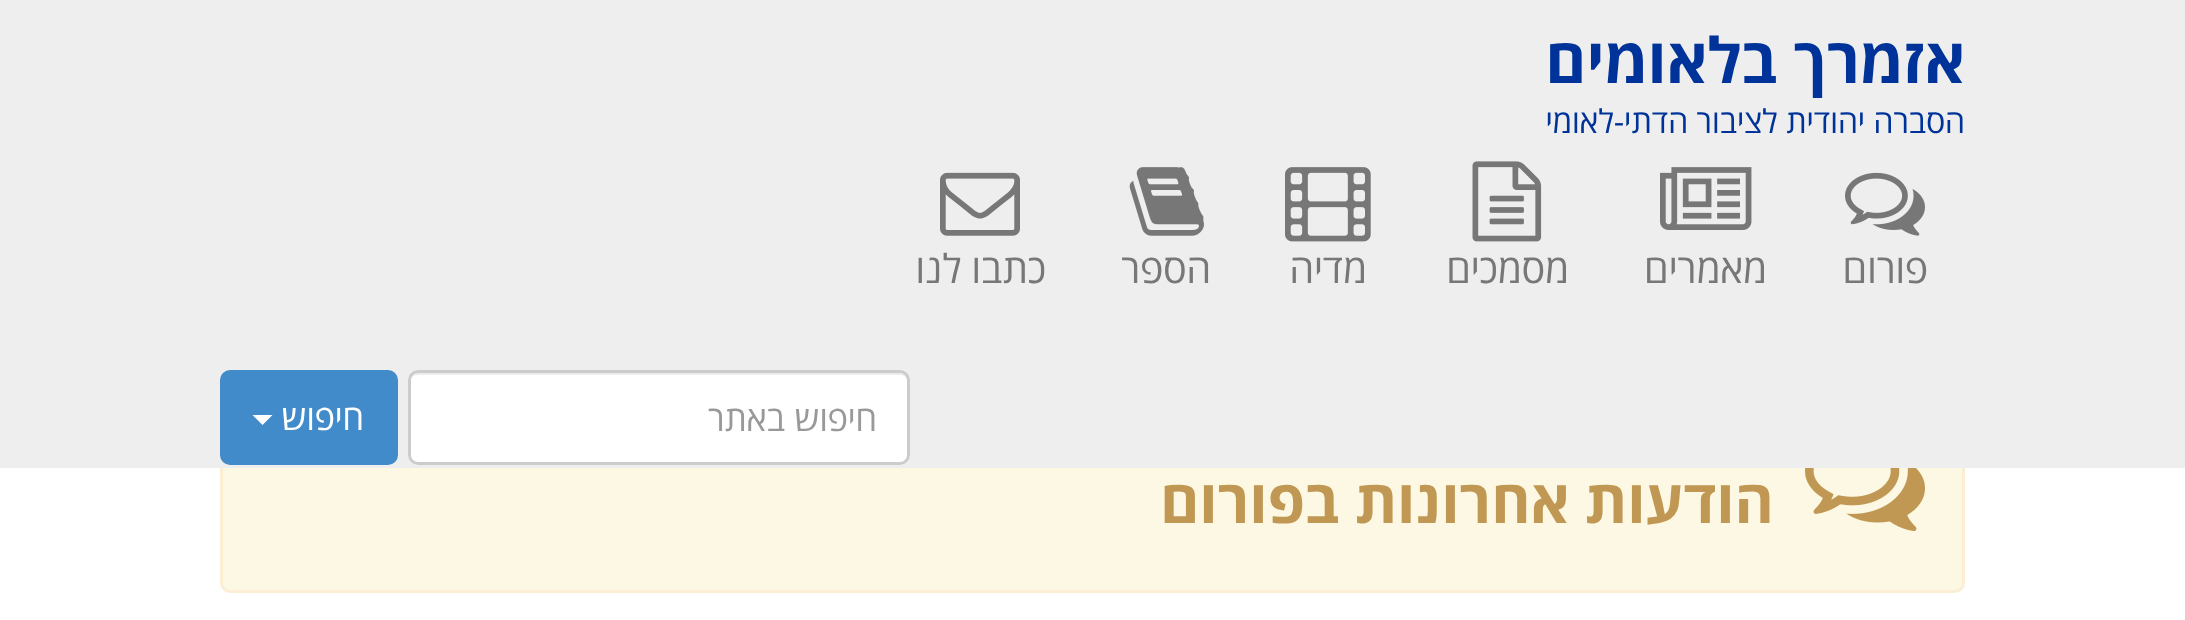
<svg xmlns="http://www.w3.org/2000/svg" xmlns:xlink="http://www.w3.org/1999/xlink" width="2185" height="620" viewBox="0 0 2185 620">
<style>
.cls-1{font:bold 62.5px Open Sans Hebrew;direction:rtl;fill:#003399}
.cls-2{font:32.5px Open Sans Hebrew;direction:rtl;fill:#003399}
.cls-3{font:40px Open Sans Hebrew;direction:rtl;fill:#777777}
.cls-4{font:35px Open Sans Hebrew;direction:rtl;fill:#999999}
.cls-5{font:35px Open Sans Hebrew;direction:rtl;fill:#ffffff}
.cls-6{font:bold 60px Open Sans Hebrew;direction:rtl;fill:#c09853}
</style>
<rect width="100%" height="100%" fill="#ffffff"/>
<rect fill="#fcf8e3" stroke="#fbeed5" stroke-width="3" x="221.5" y="344.5" width="1742" height="247" rx="8.5"/>
<rect fill="#eeeeee" x="0" y="0" width="2185" height="468"/>
<image xlink:href="image0.png" x="1845" y="172" width="80" height="64"/>
<image xlink:href="image1.png" x="1660" y="167" width="92" height="63"/>
<image xlink:href="image2.png" x="1472" y="161" width="70" height="81"/>
<image xlink:href="image3.png" x="1285" y="167" width="86" height="75"/>
<image xlink:href="image4.png" x="1129" y="167" width="75" height="69"/>
<image xlink:href="image5.png" x="940" y="172" width="80" height="64"/>
<rect fill="#ffffff" x="408" y="370" width="502" height="95" rx="10"/>
<path fill="#ececec" d="M418 375H900C904 375 908 378 908 382C908 377 905 373 900 373H418C413 373 410 377 410 382C410 378 413 375 418 375Z"/>
<rect fill="none" stroke="#cccccc" stroke-width="3" x="409.5" y="371.5" width="499" height="92" rx="8.5"/>
<rect fill="#428bca" stroke="#428bca" stroke-width="3" x="221.5" y="371.5" width="175" height="92" rx="8.5"/>
<path fill="#ffffff" d="M252.5 415H272.5L262.5 425Z"/>
<image xlink:href="image6.png" x="1805" y="468" width="120" height="63"/>
<text class="cls-1" x="1965" y="83">אזמרך בלאומים</text>
<text class="cls-2" x="1965" y="133">הסברה יהודית לציבור הדתי-לאומי</text>
<text class="cls-3" x="1928" y="283">פורום</text>
<text class="cls-3" x="1767" y="283">מאמרים</text>
<text class="cls-3" x="1569" y="283">מסמכים</text>
<text class="cls-3" x="1367" y="283">מדיה</text>
<text class="cls-3" x="1211" y="283">הספר</text>
<text class="cls-3" x="1046" y="283">כתבו לנו</text>
<text class="cls-4" x="877" y="431">חיפוש באתר</text>
<text class="cls-5" x="364" y="430">חיפוש</text>
<text class="cls-6" x="1774" y="523">הודעות אחרונות בפורום</text>
</svg>
